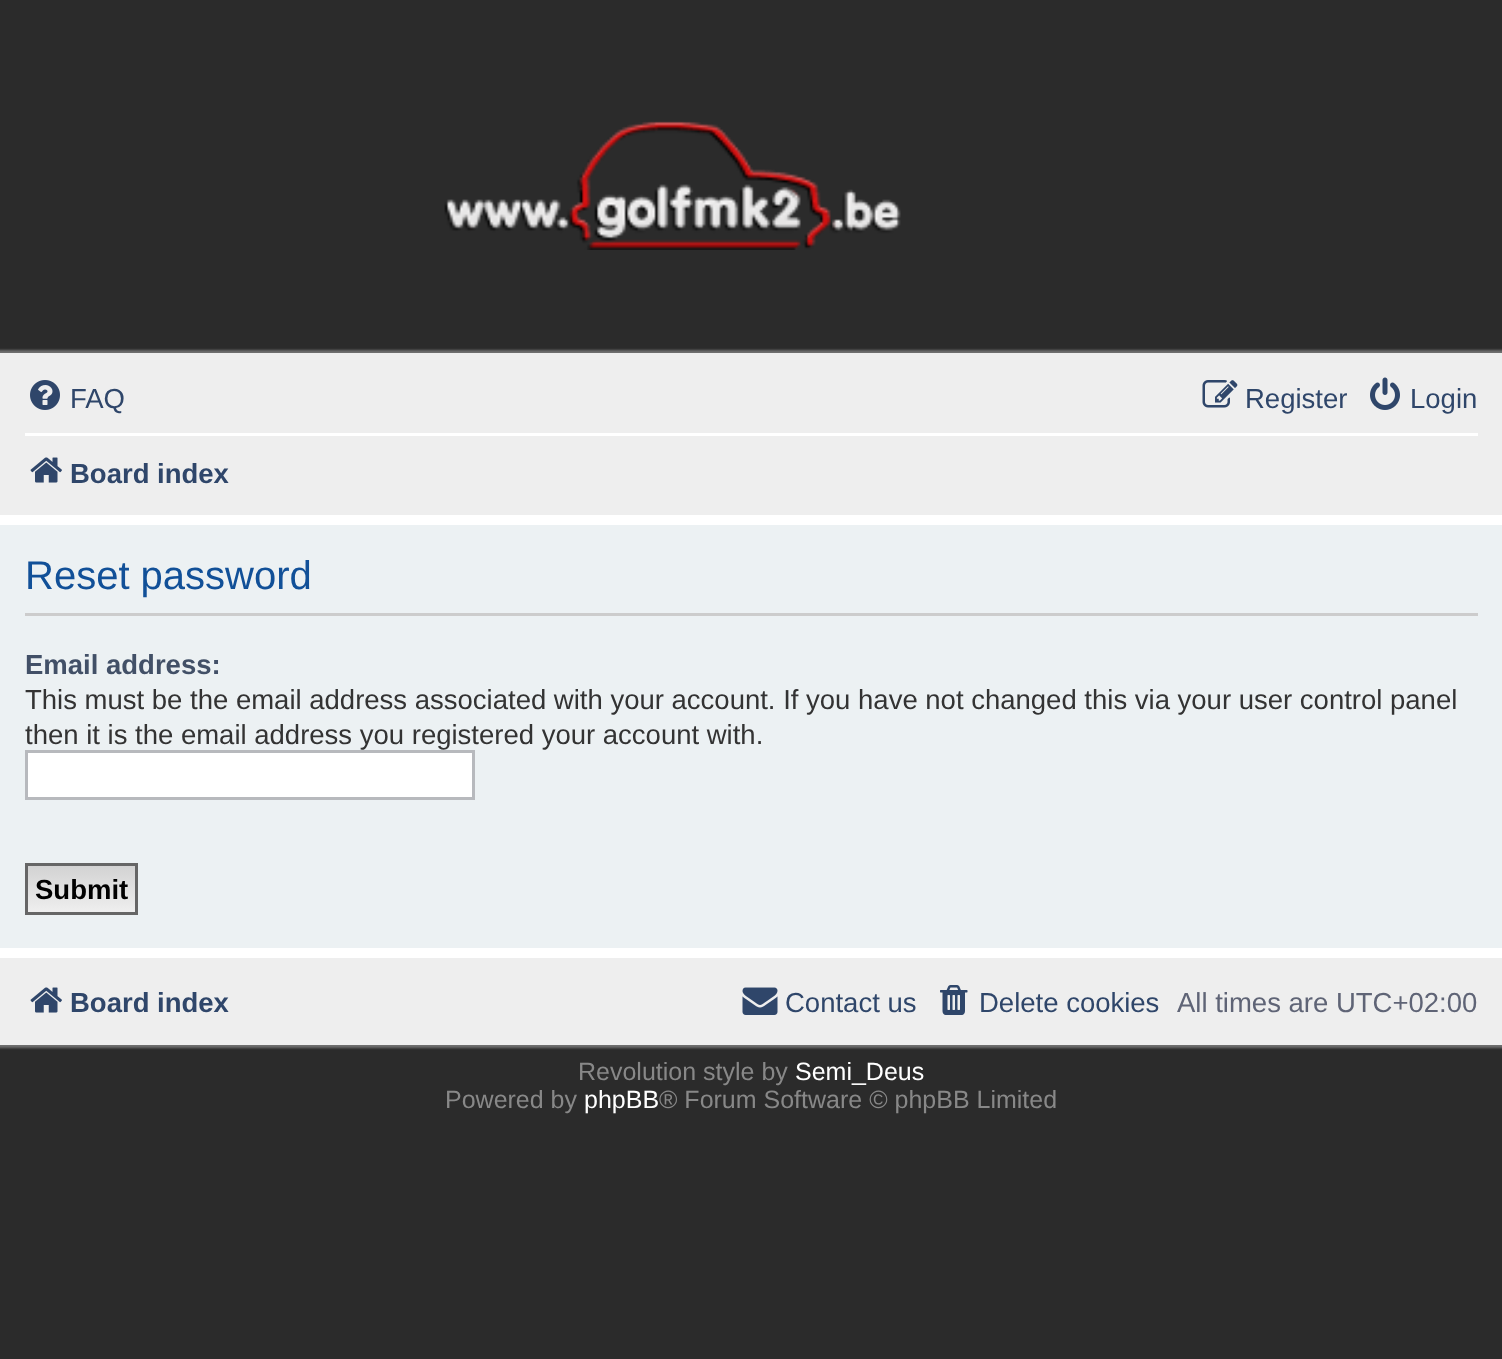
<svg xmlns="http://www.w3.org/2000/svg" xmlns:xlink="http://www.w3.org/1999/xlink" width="1502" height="1359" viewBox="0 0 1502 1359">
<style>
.cls-1{font:27.5px Liberation Sans;fill:#2f466a}
.cls-2{font:bold 27.5px Liberation Sans;fill:#2f466a}
.cls-3{font:40px Liberation Sans;fill:#115098}
.cls-4{font:bold 27.5px Liberation Sans;fill:#425067}
.cls-5{font:27.5px Liberation Sans;fill:#333333}
.cls-6{font:bold 27.5px Liberation Sans;fill:#000000}
.cls-7{font:27.5px Liberation Sans;fill:#5f6476}
.cls-8{font:25px Liberation Sans;fill:#888888}
.cls-9{font:25px Liberation Sans;fill:#ffffff}
</style>
<defs>
<linearGradient id="g1" gradientUnits="userSpaceOnUse" x1="81" y1="865" x2="81" y2="913"><stop offset="0" stop-color="#d2d2d2"/><stop offset="1" stop-color="#efefef"/></linearGradient>
</defs>
<rect width="100%" height="100%" fill="#2b2b2b"/>
<image xlink:href="image0.png" x="444" y="121" width="457" height="129"/>
<rect fill="#6e6e6e" filter="blur(1px)" x="-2" y="350" width="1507" height="698"/>
<rect fill="#ffffff" x="0" y="515" width="1502" height="443"/>
<rect fill="#eeeeee" x="0" y="353" width="1502" height="162"/>
<image xlink:href="image1.png" x="30" y="380" width="30" height="30"/>
<image xlink:href="image2.png" x="1202" y="380" width="36" height="28"/>
<image xlink:href="image3.png" x="1370" y="377" width="30" height="33"/>
<rect fill="#ffffff" x="25" y="433" width="1453" height="3"/>
<image xlink:href="image4.png" x="30" y="457" width="32" height="26"/>
<rect fill="#ecf1f3" x="0" y="525" width="1502" height="423"/>
<rect fill="#cccccc" x="25" y="613" width="1453" height="3"/>
<rect fill="#ffffff" stroke="#b7b9bd" stroke-width="3" x="26.5" y="751.5" width="447" height="47"/>
<rect fill="url(#g1)" x="28" y="866" width="107" height="46"/>
<rect fill="none" stroke="#666666" stroke-width="3" x="26.5" y="864.5" width="110" height="49"/>
<rect fill="#eeeeee" x="0" y="958" width="1502" height="87"/>
<image xlink:href="image4.png" x="30" y="987" width="32" height="26"/>
<image xlink:href="image5.png" x="742" y="987" width="36" height="28"/>
<image xlink:href="image6.png" x="940" y="985" width="28" height="30"/>
<text class="cls-1" x="70" y="408">FAQ</text>
<text class="cls-1" x="1245" y="408">Register</text>
<text class="cls-1" x="1410" y="408">Login</text>
<text class="cls-2" x="70" y="483">Board index</text>
<text class="cls-3" x="25" y="589">Reset password</text>
<text class="cls-4" x="25" y="674">Email address:</text>
<text class="cls-5"><tspan x="25" y="709">This must be the email address associated with your account. If you have not changed this via your user control panel</tspan><tspan x="25" y="744">then it is the email address you registered your account with.</tspan></text>
<text class="cls-6" x="35" y="899">Submit</text>
<text class="cls-2" x="70" y="1012">Board index</text>
<text class="cls-1" x="785" y="1012">Contact us</text>
<text class="cls-1" x="979" y="1012">Delete cookies</text>
<text class="cls-7" x="1177" y="1012">All times are UTC+02:00</text>
<text class="cls-8" x="578" y="1080">Revolution style by</text>
<text class="cls-9" x="795" y="1080">Semi_Deus</text>
<text class="cls-8" x="445" y="1108">Powered by</text>
<text class="cls-9" x="584" y="1108">phpBB</text>
<text class="cls-8" x="659" y="1108">® Forum Software © phpBB Limited</text>
</svg>
